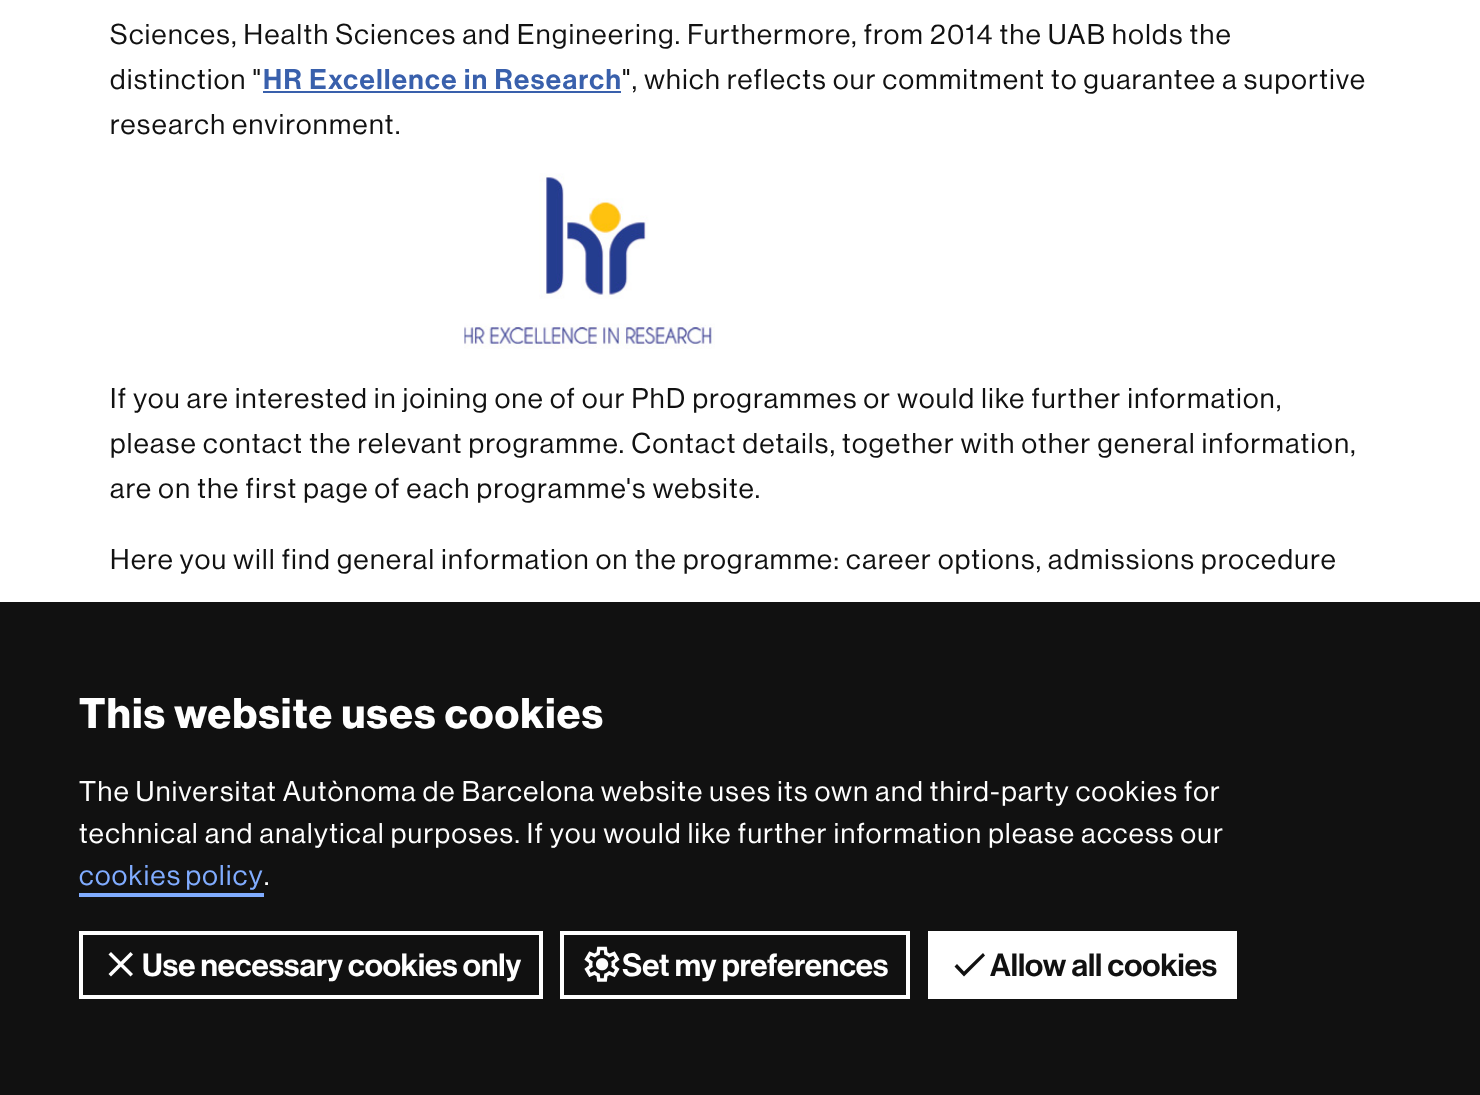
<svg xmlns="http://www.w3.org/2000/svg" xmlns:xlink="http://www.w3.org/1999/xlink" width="1480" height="1095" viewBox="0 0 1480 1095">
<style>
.cls-1{font:500 28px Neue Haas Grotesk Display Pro;letter-spacing:1.4px;fill:#111111}
.cls-2{font:500 28px 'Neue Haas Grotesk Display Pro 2';letter-spacing:1.4px;fill:#3960ac}
.cls-3{font:bold 42px Neue Haas Grotesk Display Pro;letter-spacing:1.4px;fill:#ffffff}
.cls-4{font:500 28px Neue Haas Grotesk Display Pro;letter-spacing:1.4px;fill:#ffffff}
.cls-5{font:500 28px Neue Haas Grotesk Display Pro;letter-spacing:1.4px;fill:#80acff}
.cls-6{font:500 31.5px 'Neue Haas Grotesk Display Pro 2';fill:#ffffff}
.cls-7{font:500 31.5px 'Neue Haas Grotesk Display Pro 2';fill:#111111}
</style>
<rect width="100%" height="100%" fill="#ffffff"/>
<rect fill="#3960ac" x="263" y="91" width="358" height="2"/>
<image xlink:href="image0.png" x="464" y="173" width="251" height="176"/>
<rect fill="#111111" x="0" y="602" width="1480" height="493"/>
<rect fill="#80acff" x="79" y="893" width="185" height="4"/>
<rect fill="none" stroke="#ffffff" stroke-width="4" x="81" y="933" width="460" height="64"/>
<image xlink:href="image1.png" x="108" y="952" width="25" height="25"/>
<rect fill="none" stroke="#ffffff" stroke-width="4" x="562" y="933" width="346" height="64"/>
<image xlink:href="image2.png" x="584" y="946" width="36" height="36"/>
<rect fill="#ffffff" x="928" y="931" width="309" height="68"/>
<path fill="#111111" d="M964 971.5L957 964L954.5 966.5L964 976.5L985 955.5L983 953Z"/>
<text class="cls-1"><tspan x="110" y="44">Sciences, Health Sciences and Engineering. Furthermore, from 2014 the UAB holds the</tspan><tspan x="110" y="89">distinction "</tspan></text>
<text class="cls-2" x="263" y="89">HR Excellence in Research</text>
<text class="cls-1" x="622" y="89">", which reflects our commitment to guarantee a suportive</text>
<text class="cls-1" x="110" y="134">research environment.</text>
<text class="cls-1"><tspan x="110" y="408">If you are interested in joining one of our PhD programmes or would like further information,</tspan><tspan x="110" y="453">please contact the relevant programme. Contact details, together with other general information,</tspan><tspan x="110" y="498">are on the first page of each programme's website.</tspan></text>
<text class="cls-1" x="110" y="569">Here you will find general information on the programme: career options, admissions procedure</text>
<text class="cls-3" x="79" y="728">This website uses cookies</text>
<text class="cls-4"><tspan x="79" y="801">The Universitat Autònoma de Barcelona website uses its own and third-party cookies for</tspan><tspan x="79" y="843">technical and analytical purposes. If you would like further information please access our</tspan></text>
<text class="cls-5" x="79" y="885" word-spacing="-2">cookies policy</text>
<text class="cls-4" x="264" y="885">.</text>
<text class="cls-6" x="142" y="976">Use necessary cookies only</text>
<text class="cls-6" x="622" y="976">Set my preferences</text>
<text class="cls-7" x="990" y="976">Allow all cookies</text>
</svg>
